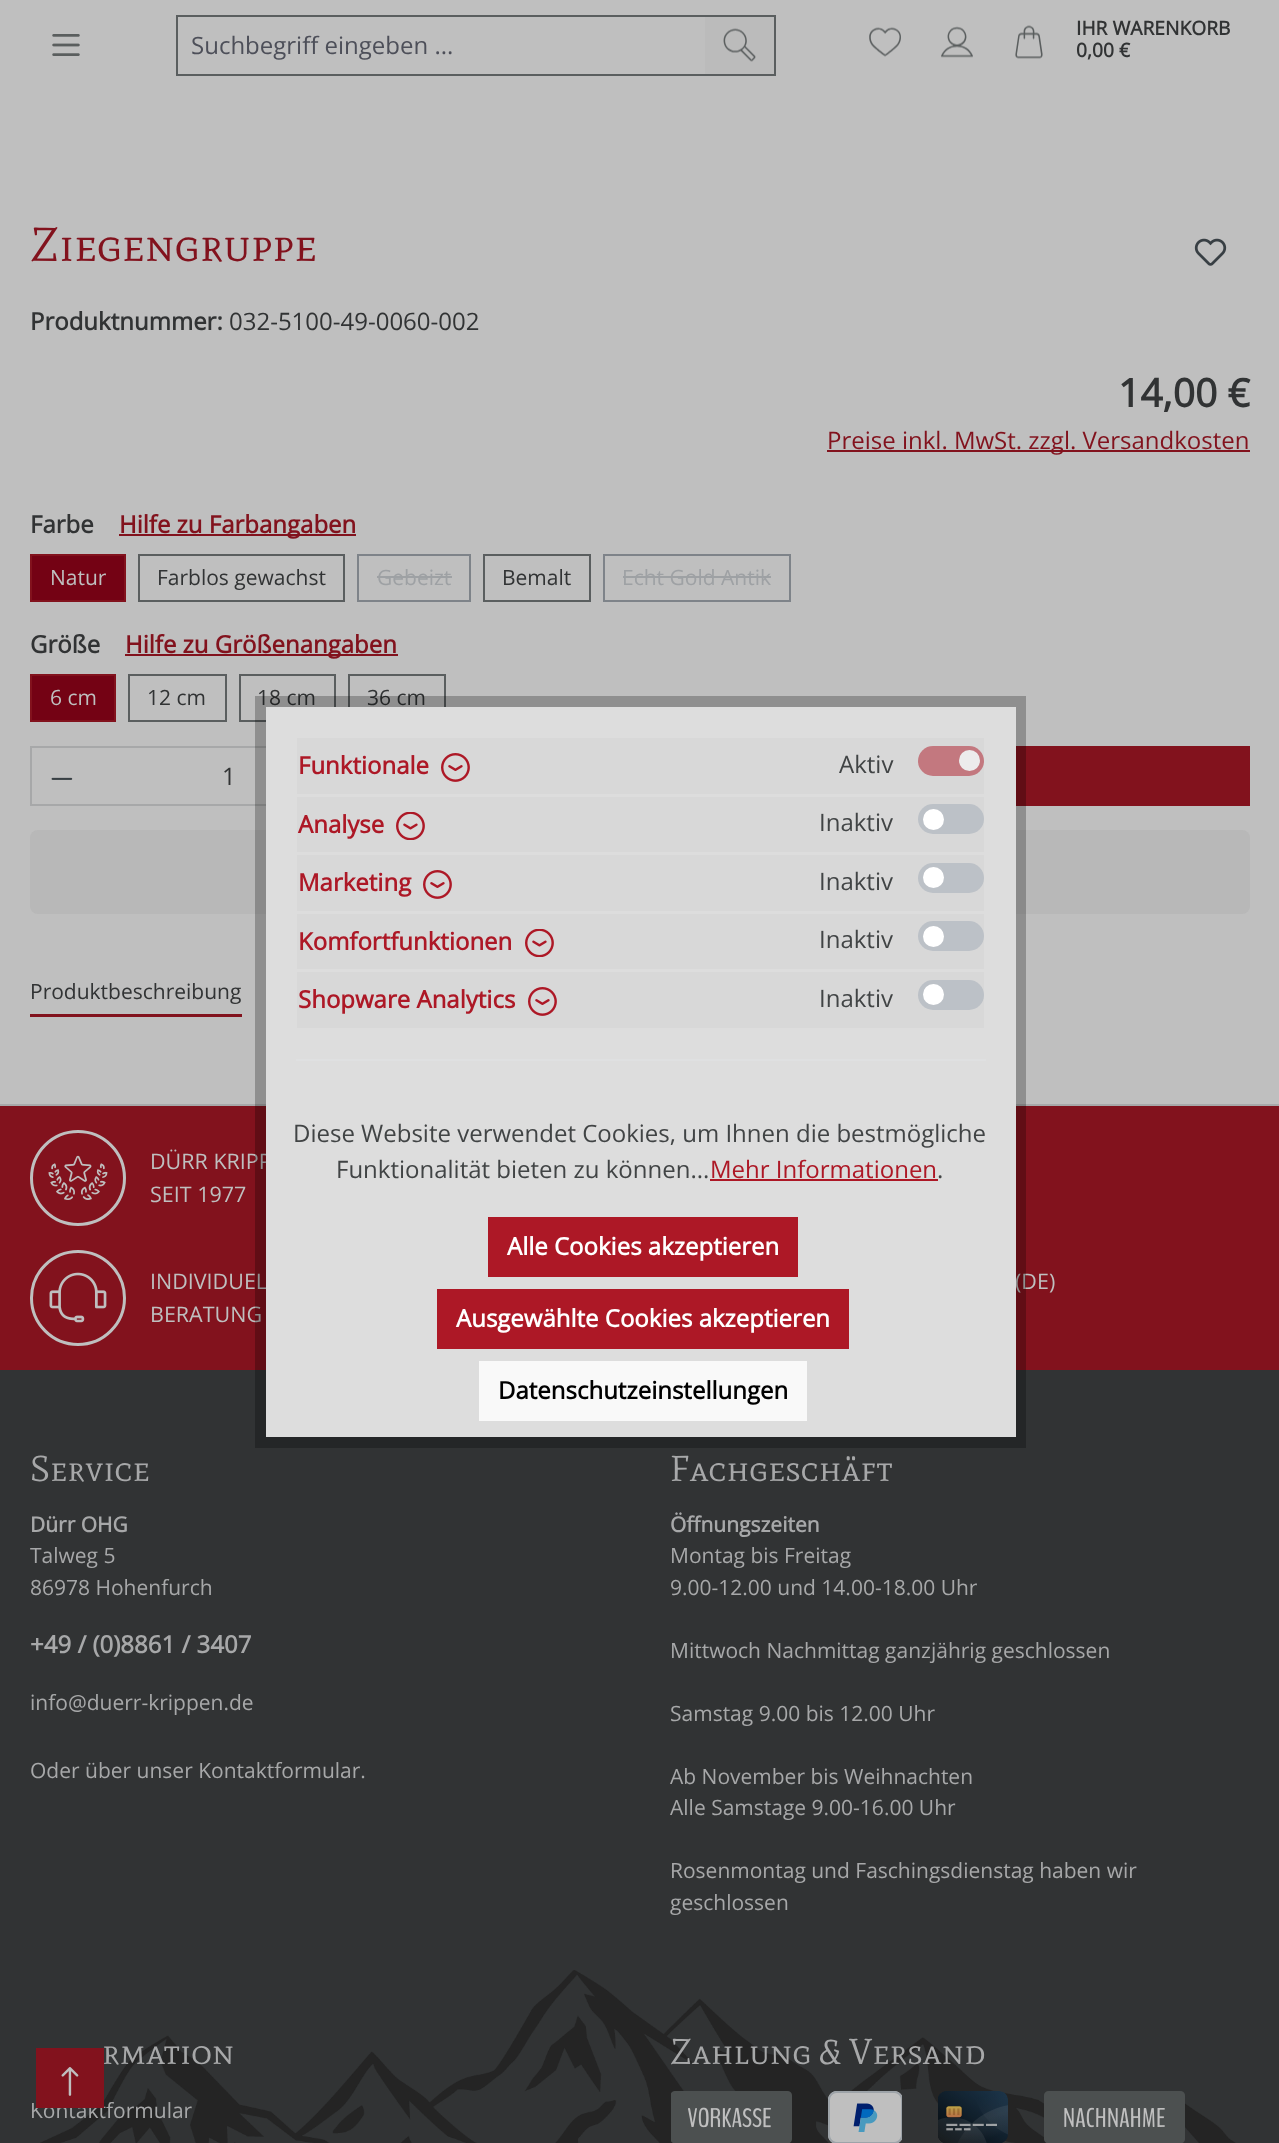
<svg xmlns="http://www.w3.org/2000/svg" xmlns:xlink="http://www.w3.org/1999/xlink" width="1279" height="2143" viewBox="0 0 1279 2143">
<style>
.cls-1{font:24px Open Sans;fill:#4d4f59}
.cls-2{font:bold 19.25px Open Sans;fill:#313334}
.cls-3{font:47.75px Mate SC;fill:#82121d}
.cls-4{font:bold 24px Open Sans;fill:#313334}
.cls-5{font:24px Open Sans;fill:#313334}
.cls-6{font:bold 39px Open Sans;fill:#313334}
.cls-7{font:24px Open Sans;fill:#82121d}
.cls-8{font:bold 24px Open Sans;fill:#82121d}
.cls-9{font:21px Open Sans;fill:#bfbfbf}
.cls-10{font:21px Open Sans;fill:#313334}
.cls-11{font:21px Open Sans;fill:#9ea1a4}
.cls-12{font:21.5px Open Sans;fill:#bfbfbf}
.cls-13{font:24px Open Sans;fill:#414445}
.cls-14{font:bold 24px Open Sans;fill:#ad1826}
.cls-15{font:bold 24px Open Sans;fill:#000000}
.cls-16{font:bold 24px Open Sans;fill:#ffffff}
.cls-17{font:24px Open Sans;fill:#ad1826}
.cls-18{font:36px Mate SC;fill:#a7a8a9}
.cls-19{font:bold 21px Open Sans;fill:#a7a8a9}
.cls-20{font:21px Open Sans;fill:#a7a8a9}
.cls-21{font:bold 24px Open Sans;fill:#a7a8a9}
</style>
<rect width="100%" height="100%" fill="#bfbfbf"/>
<image xlink:href="image0.png" x="52" y="34" width="28" height="22"/>
<rect fill="#5a5e5f" x="176" y="15" width="600" height="2"/>
<rect fill="#5a5e5f" x="176" y="74" width="531" height="2"/>
<rect fill="#5a5e5f" x="176" y="15" width="2" height="60"/>
<rect fill="#bbbbbb" x="705" y="17" width="69" height="57"/>
<rect fill="#5a5e5f" x="774" y="15" width="2" height="60"/>
<rect fill="#5a5e5f" x="705" y="74" width="71" height="2"/>
<image xlink:href="image1.png" x="723" y="28" width="33" height="34"/>
<image xlink:href="image2.png" x="869" y="27" width="32" height="30"/>
<image xlink:href="image3.png" x="941" y="26" width="32" height="32"/>
<image xlink:href="image4.png" x="1015" y="25" width="28" height="34"/>
<image xlink:href="image5.png" x="1194" y="238" width="33" height="28"/>
<rect fill="#82121d" x="827" y="450" width="423" height="2"/>
<rect fill="#82121d" x="119" y="534" width="237" height="2"/>
<rect fill="#740214" stroke="#82121d" stroke-width="2" x="31" y="555" width="94" height="46"/>
<rect fill="none" stroke="#5a5e5f" stroke-width="2" x="139" y="555" width="205" height="46"/>
<rect fill="none" stroke="#7e8389" stroke-width="2" x="358" y="555" width="112" height="46"/>
<rect fill="#9ea1a4" x="377" y="576" width="75" height="2"/>
<rect fill="none" stroke="#5a5e5f" stroke-width="2" x="484" y="555" width="106" height="46"/>
<rect fill="none" stroke="#7e8389" stroke-width="2" x="604" y="555" width="186" height="46"/>
<rect fill="#9ea1a4" x="623" y="576" width="148" height="2"/>
<rect fill="#82121d" x="125" y="654" width="273" height="2"/>
<rect fill="#740214" stroke="#82121d" stroke-width="2" x="31" y="675" width="84" height="46"/>
<rect fill="none" stroke="#5a5e5f" stroke-width="2" x="129" y="675" width="97" height="46"/>
<rect fill="none" stroke="#5a5e5f" stroke-width="2" x="240" y="675" width="95" height="46"/>
<rect fill="none" stroke="#5a5e5f" stroke-width="2" x="349" y="675" width="96" height="46"/>
<rect fill="#a7a8a9" x="30" y="746" width="236" height="2"/>
<rect fill="#a7a8a9" x="30" y="804" width="236" height="2"/>
<rect fill="#a7a8a9" x="30" y="746" width="2" height="60"/>
<image xlink:href="image6.png" x="51" y="777" width="22" height="3"/>
<rect fill="#82121d" x="1016" y="746" width="234" height="60"/>
<rect fill="#b8b8b8" x="30" y="830" width="1220" height="84" rx="8"/>
<rect fill="#82121d" x="30" y="1014" width="212" height="3"/>
<rect fill="#a7a8a9" x="0" y="1104" width="1279" height="2"/>
<rect fill="#82121d" x="0" y="1106" width="1279" height="264"/>
<circle fill="none" stroke="#bfbfbf" stroke-width="3" cx="78" cy="1178" r="46.5"/>
<image xlink:href="image9.png" x="48" y="1155" width="60" height="45"/>
<circle fill="none" stroke="#bfbfbf" stroke-width="3" cx="78" cy="1298" r="46.5"/>
<image xlink:href="image10.png" x="49" y="1272" width="58" height="51"/>
<rect fill="#313334" x="0" y="1370" width="1279" height="773"/>
<image xlink:href="image11.png" x="40" y="1970" width="1196" height="173"/>
<image xlink:href="image12.png" x="671" y="2091" width="121" height="52"/>
<image xlink:href="image13.png" x="828" y="2091" width="74" height="52"/>
<image xlink:href="image14.png" x="938" y="2091" width="70" height="52"/>
<image xlink:href="image15.png" x="1044" y="2091" width="141" height="52"/>
<text class="cls-1" x="191" y="54">Suchbegriff eingeben ...</text>
<text class="cls-2"><tspan x="1076" y="35">IHR WARENKORB</tspan><tspan x="1076" y="57">0,00 €</tspan></text>
<text class="cls-3" x="30" y="261">Ziegengruppe</text>
<text class="cls-4" x="30" y="330">Produktnummer:</text>
<text class="cls-5" x="229" y="330">032-5100-49-0060-002</text>
<text class="cls-6" x="1118" y="407">14,00 €</text>
<text class="cls-7" x="827" y="449">Preise inkl. MwSt. zzgl. Versandkosten</text>
<text class="cls-4" x="30" y="533">Farbe</text>
<text class="cls-8" x="119" y="533">Hilfe zu Farbangaben</text>
<text class="cls-9" x="50" y="585">Natur</text>
<text class="cls-10" x="157" y="585">Farblos gewachst</text>
<text class="cls-11" x="377" y="585">Gebeizt</text>
<text class="cls-10" x="502" y="585">Bemalt</text>
<text class="cls-11" x="622" y="585">Echt Gold Antik</text>
<text class="cls-4" x="30" y="653">Größe</text>
<text class="cls-8" x="125" y="653">Hilfe zu Größenangaben</text>
<text class="cls-9" x="50" y="705">6 cm</text>
<text class="cls-10" x="147" y="705">12 cm</text>
<text class="cls-10" x="257" y="705">18 cm</text>
<text class="cls-10" x="367" y="705">36 cm</text>
<text class="cls-5" x="222" y="785">1</text>
<text class="cls-10" x="30" y="999">Produktbeschreibung</text>
<text class="cls-12"><tspan x="150" y="1169">DÜRR KRIPP</tspan><tspan x="150" y="1202">SEIT 1977</tspan></text>
<text class="cls-12"><tspan x="150" y="1289">INDIVIDUEL</tspan><tspan x="150" y="1322">BERATUNG</tspan></text>
<text class="cls-12" x="1015" y="1289">(DE)</text>
<rect fill="none" stroke="#000000" stroke-opacity="0.25" stroke-width="11" x="260.5" y="701.5" width="760" height="741"/>
<rect fill="#dddddd" x="266" y="707" width="750" height="730"/>
<rect fill="#d8d8d8" x="297" y="972" width="687" height="56"/>
<text class="cls-13" x="819" y="1007">Inaktiv</text>
<rect fill="#bcc1c7" x="918" y="980" width="66" height="30" rx="15"/>
<circle fill="#ffffff" cx="933.5" cy="994.5" r="10.5"/>
<image xlink:href="image7.png" x="528" y="987" width="29" height="29"/>
<text class="cls-14" x="298" y="1008">Shopware Analytics</text>
<rect fill="#d8d8d8" x="297" y="914" width="687" height="55"/>
<text class="cls-13" x="819" y="948">Inaktiv</text>
<rect fill="#bcc1c7" x="918" y="921" width="66" height="30" rx="15"/>
<circle fill="#ffffff" cx="933.5" cy="936.5" r="10.5"/>
<image xlink:href="image8.png" x="525" y="929" width="29" height="28"/>
<text class="cls-14" x="298" y="950">Komfortfunktionen</text>
<rect fill="#d8d8d8" x="297" y="855" width="687" height="56"/>
<text class="cls-13" x="819" y="890">Inaktiv</text>
<rect fill="#bcc1c7" x="918" y="863" width="66" height="30" rx="15"/>
<circle fill="#ffffff" cx="933.5" cy="877.5" r="10.5"/>
<image xlink:href="image7.png" x="423" y="870" width="29" height="29"/>
<text class="cls-14" x="298" y="891">Marketing</text>
<rect fill="#d8d8d8" x="297" y="797" width="687" height="55"/>
<text class="cls-13" x="819" y="831">Inaktiv</text>
<rect fill="#bcc1c7" x="918" y="804" width="66" height="30" rx="15"/>
<circle fill="#ffffff" cx="933.5" cy="819.5" r="10.5"/>
<image xlink:href="image8.png" x="396" y="812" width="29" height="28"/>
<text class="cls-14" x="298" y="833">Analyse</text>
<rect fill="#d8d8d8" x="297" y="738" width="687" height="56"/>
<text class="cls-13" x="839" y="773">Aktiv</text>
<rect fill="#c3787f" x="918" y="746" width="66" height="30" rx="15"/>
<circle fill="#ececec" cx="969.5" cy="760.5" r="10.5"/>
<image xlink:href="image7.png" x="441" y="753" width="29" height="29"/>
<text class="cls-14" x="298" y="774">Funktionale</text>
<rect fill="#f9f9f9" x="479" y="1361" width="328" height="60"/>
<text class="cls-15" x="498" y="1399">Datenschutzeinstellungen</text>
<rect fill="#ad1826" x="437" y="1289" width="412" height="60"/>
<text class="cls-16" x="456" y="1327">Ausgewählte Cookies akzeptieren</text>
<rect fill="#ad1826" x="488" y="1217" width="310" height="60"/>
<text class="cls-16" x="507" y="1255">Alle Cookies akzeptieren</text>
<rect fill="#dfe0e1" x="296" y="1059" width="690" height="2"/>
<text class="cls-13" x="937" y="1178">.</text>
<text class="cls-17" x="710" y="1178">Mehr Informationen</text>
<rect fill="#ad1826" x="710" y="1179" width="228" height="2"/>
<text class="cls-13" x="336" y="1178">Funktionalität bieten zu können...</text>
<text class="cls-13" x="293" y="1142">Diese Website verwendet Cookies, um Ihnen die bestmögliche</text>
<text class="cls-18" x="30" y="1481">Service</text>
<text class="cls-19" x="30" y="1532">Dürr OHG</text>
<text class="cls-20"><tspan x="30" y="1563">Talweg 5</tspan><tspan x="30" y="1595">86978 Hohenfurch</tspan></text>
<text class="cls-21" x="30" y="1653">+49 / (0)8861 / 3407</text>
<text class="cls-20" x="30" y="1710">info@duerr-krippen.de</text>
<text class="cls-20" x="30" y="1778">Oder über unser Kontaktformular.</text>
<text class="cls-18" x="670" y="1481">Fachgeschäft</text>
<text class="cls-19" x="670" y="1532">Öffnungszeiten</text>
<text class="cls-20"><tspan x="670" y="1563">Montag bis Freitag</tspan><tspan x="670" y="1595">9.00-12.00 und 14.00-18.00 Uhr</tspan></text>
<text class="cls-20" x="670" y="1658">Mittwoch Nachmittag ganzjährig geschlossen</text>
<text class="cls-20" x="670" y="1721">Samstag 9.00 bis 12.00 Uhr</text>
<text class="cls-20"><tspan x="670" y="1784">Ab November bis Weihnachten</tspan><tspan x="670" y="1815">Alle Samstage 9.00-16.00 Uhr</tspan></text>
<text class="cls-20"><tspan x="670" y="1878">Rosenmontag und Faschingsdienstag haben wir</tspan><tspan x="670" y="1910">geschlossen</tspan></text>
<text class="cls-18" x="102" y="2064">rmation</text>
<text class="cls-20" x="30" y="2118">Kontaktformular</text>
<text class="cls-18" x="670" y="2064">Zahlung &amp; Versand</text>
<rect fill="#82121d" x="36" y="2048" width="68" height="60"/>
<image xlink:href="image16.png" x="61" y="2067" width="18" height="29"/>
</svg>
